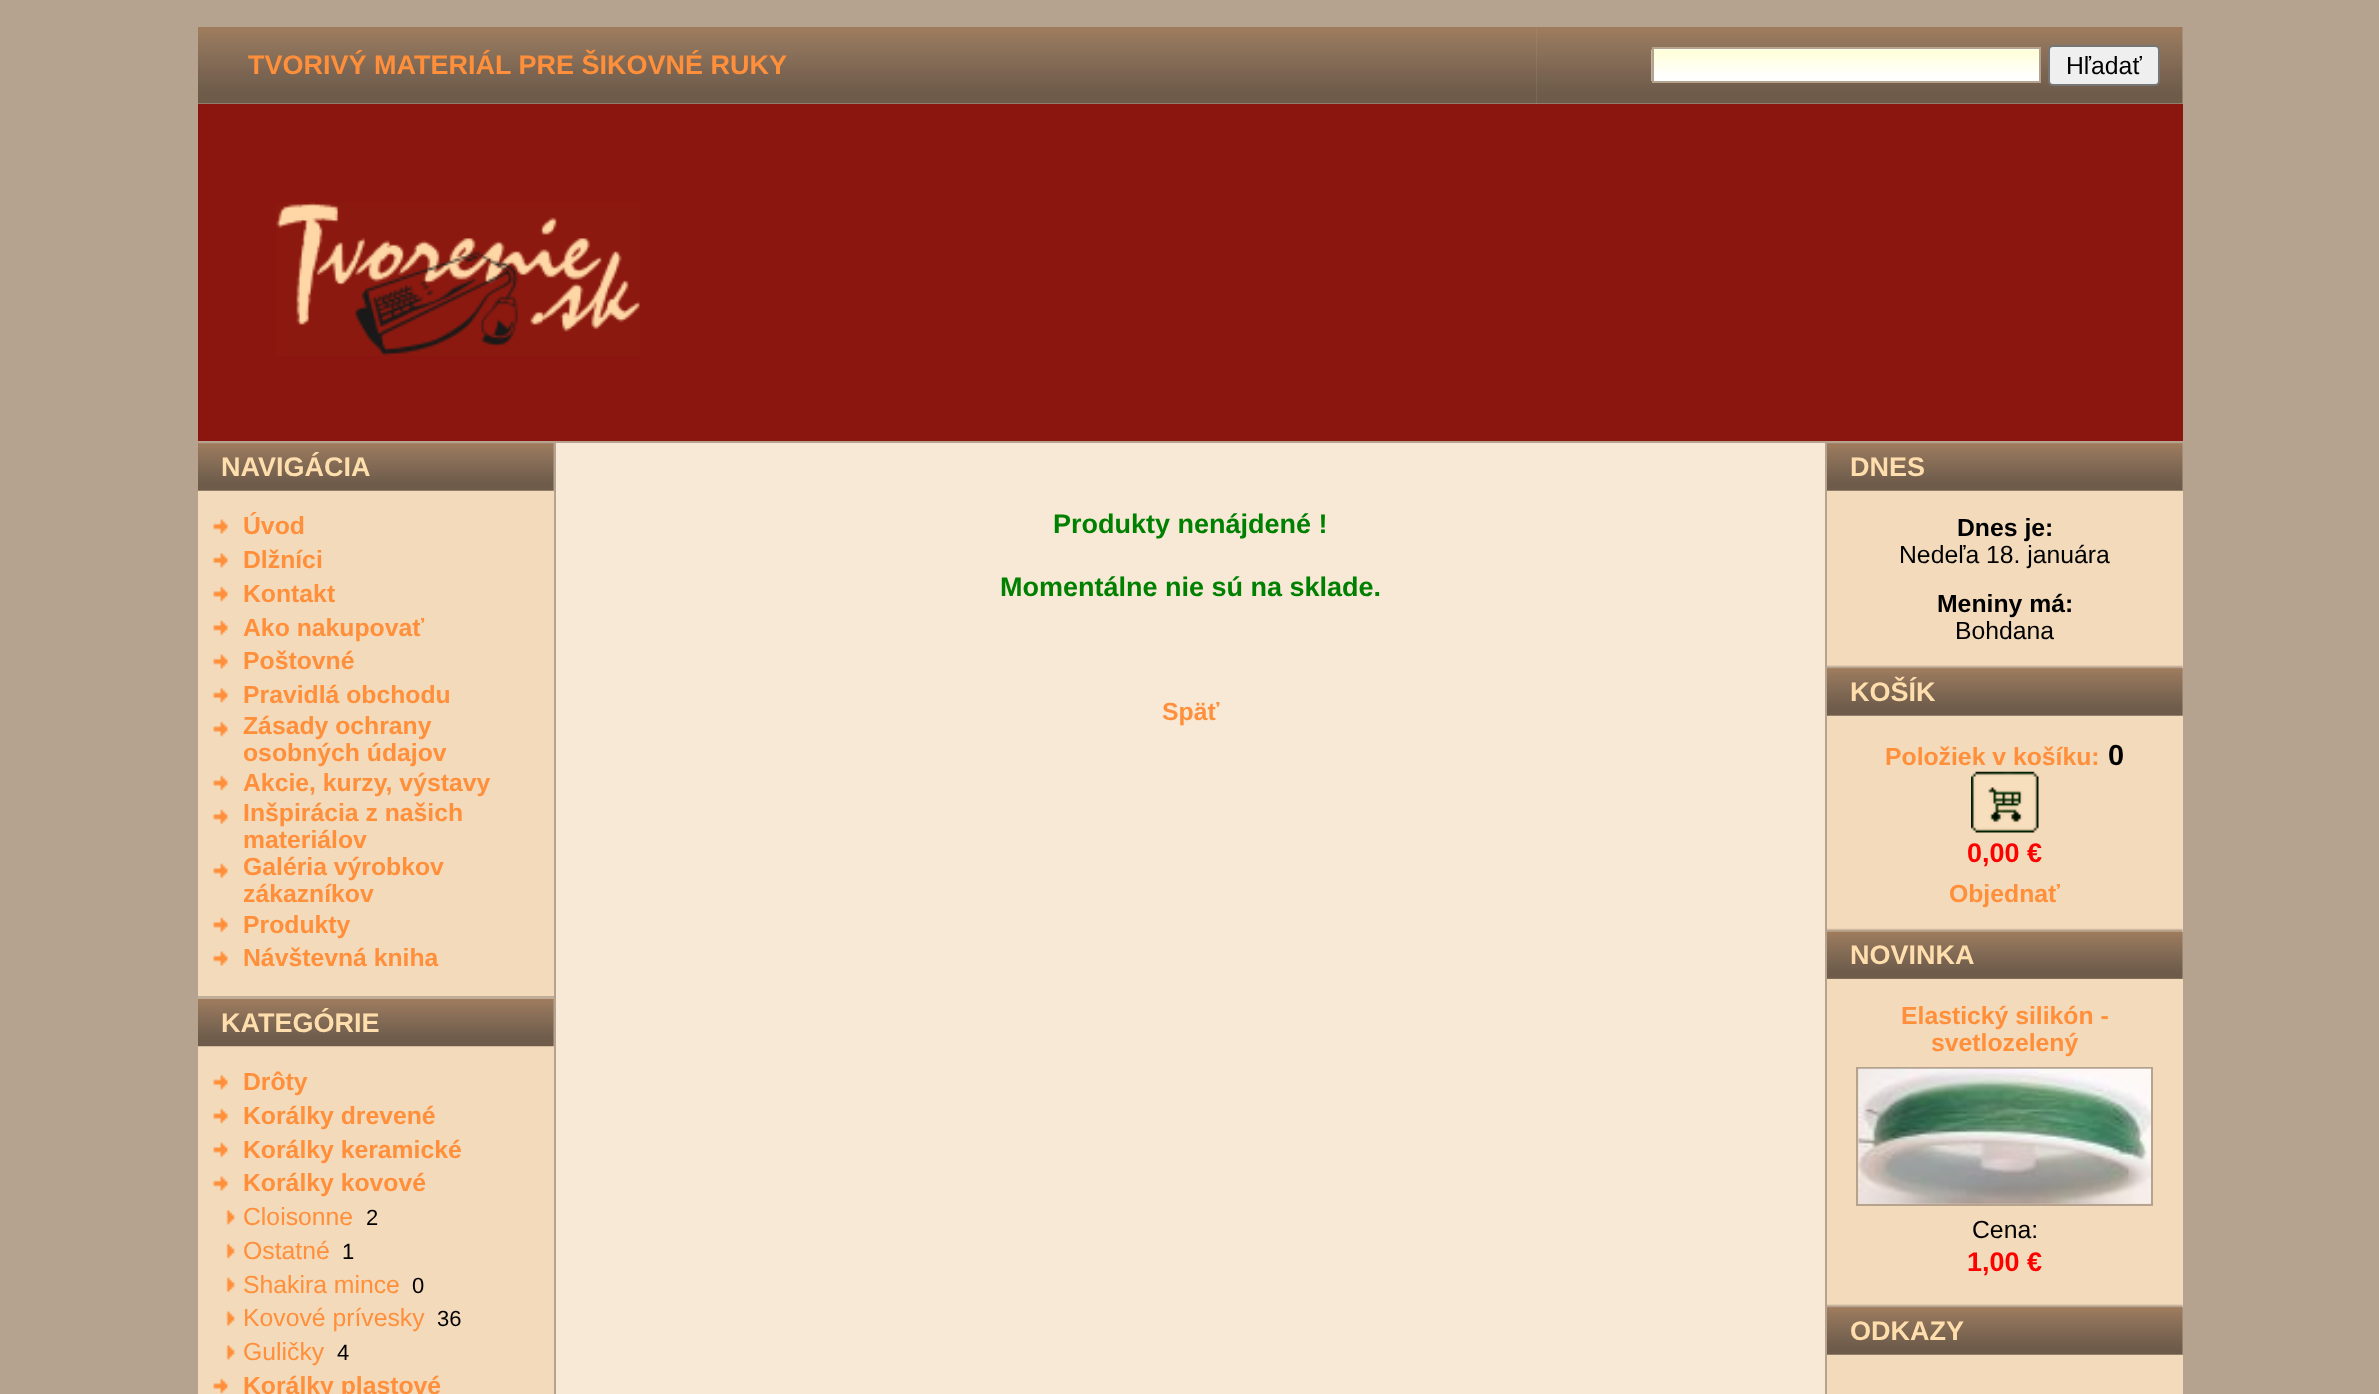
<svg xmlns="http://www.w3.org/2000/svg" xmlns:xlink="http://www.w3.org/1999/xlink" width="2379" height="1394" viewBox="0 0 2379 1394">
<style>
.cls-1{font:bold 27px Liberation Sans;fill:#ff8f3a}
.cls-2{font:24.75px Liberation Sans;fill:#000000}
.cls-3{font:bold 27px Liberation Sans;fill:#ffdead}
.cls-4{font:bold 24.75px Liberation Sans;fill:#ff8f3a}
.cls-5{font:24.75px Liberation Sans;fill:#ff8f3a}
.cls-6{font:22px Liberation Sans;fill:#000000}
.cls-7{font:bold 27px Liberation Sans;fill:#008000}
.cls-8{font:bold 24.75px Liberation Sans;fill:#000000}
.cls-9{font:bold 29px Liberation Sans;fill:#000000}
.cls-10{font:bold 27px Liberation Sans;fill:#ff0000}
</style>
<rect width="100%" height="100%" fill="#b5a38f"/>
<image xlink:href="image0.png" x="198" y="27" width="1339" height="77"/>
<image xlink:href="image1.png" x="1536" y="27" width="647" height="77"/>
<rect fill="#ffffff" x="1654" y="49" width="385" height="1"/>
<image xlink:href="image2.png" x="1651" y="49" width="388" height="32"/>
<rect fill="none" stroke="#b5a38f" stroke-width="2" x="1653" y="48" width="387" height="34"/>
<rect fill="#efefef" stroke="#767676" stroke-width="2" x="2049" y="46" width="110" height="39" rx="4"/>
<rect fill="#8b1610" x="198" y="104" width="1985" height="337"/>
<image xlink:href="image3.png" x="276" y="202" width="364" height="154"/>
<rect fill="#f3daba" x="198" y="491" width="356" height="903"/>
<image xlink:href="image4.png" x="198" y="443" width="356" height="48"/>
<image xlink:href="image5.png" x="213" y="519" width="15" height="15"/>
<image xlink:href="image6.png" x="213" y="553" width="15" height="15"/>
<image xlink:href="image7.png" x="213" y="586" width="15" height="16"/>
<image xlink:href="image8.png" x="213" y="620" width="15" height="16"/>
<image xlink:href="image5.png" x="213" y="654" width="15" height="15"/>
<image xlink:href="image6.png" x="213" y="688" width="15" height="15"/>
<image xlink:href="image9.png" x="213" y="721" width="15" height="16"/>
<image xlink:href="image9.png" x="213" y="775" width="15" height="16"/>
<image xlink:href="image8.png" x="213" y="809" width="15" height="16"/>
<image xlink:href="image8.png" x="213" y="863" width="15" height="16"/>
<image xlink:href="image8.png" x="213" y="917" width="15" height="16"/>
<image xlink:href="image5.png" x="213" y="951" width="15" height="15"/>
<rect fill="#c0ad97" x="198" y="996" width="356" height="3"/>
<rect fill="#b5a38f" x="553" y="999" width="1" height="47"/>
<image xlink:href="image10.png" x="198" y="999" width="356" height="48"/>
<image xlink:href="image6.png" x="213" y="1075" width="15" height="15"/>
<image xlink:href="image9.png" x="213" y="1108" width="15" height="16"/>
<image xlink:href="image8.png" x="213" y="1142" width="15" height="16"/>
<image xlink:href="image5.png" x="213" y="1176" width="15" height="15"/>
<image xlink:href="image11.png" x="226" y="1210" width="9" height="15"/>
<image xlink:href="image12.png" x="226" y="1243" width="9" height="16"/>
<image xlink:href="image13.png" x="226" y="1277" width="9" height="16"/>
<image xlink:href="image14.png" x="226" y="1311" width="9" height="15"/>
<image xlink:href="image11.png" x="226" y="1345" width="9" height="15"/>
<image xlink:href="image9.png" x="213" y="1378" width="15" height="16"/>
<rect fill="#f8e9d6" x="556" y="443" width="1269" height="951"/>
<rect fill="#f3daba" x="1827" y="491" width="356" height="903"/>
<image xlink:href="image4.png" x="1827" y="443" width="356" height="48"/>
<image xlink:href="image15.png" x="1827" y="665" width="356" height="3"/>
<rect fill="#b5a38f" x="1827" y="668" width="356" height="48"/>
<image xlink:href="image4.png" x="1827" y="668" width="356" height="48"/>
<image xlink:href="image16.png" x="1971" y="771" width="68" height="62"/>
<image xlink:href="image17.png" x="1827" y="928" width="356" height="4"/>
<rect fill="#b5a38f" x="1827" y="932" width="356" height="47"/>
<image xlink:href="image18.png" x="1827" y="931" width="356" height="48"/>
<rect fill="none" stroke="#b5a38f" stroke-width="2" x="1857" y="1068" width="295" height="137"/>
<image xlink:href="image19.png" x="1858" y="1068" width="293" height="136"/>
<image xlink:href="image15.png" x="1827" y="1304" width="356" height="3"/>
<rect fill="#b5a38f" x="1827" y="1307" width="356" height="48"/>
<image xlink:href="image4.png" x="1827" y="1307" width="356" height="48"/>
<text class="cls-1" x="248" y="74">TVORIVÝ MATERIÁL PRE ŠIKOVNÉ RUKY</text>
<text class="cls-2" x="2066" y="74">Hľadať</text>
<text class="cls-3" x="221" y="476">NAVIGÁCIA</text>
<text class="cls-4"><tspan x="243" y="534">Úvod</tspan><tspan x="243" y="568">Dlžníci</tspan><tspan x="243" y="602">Kontakt</tspan><tspan x="243" y="636">Ako nakupovať</tspan><tspan x="243" y="669">Poštovné</tspan><tspan x="243" y="703">Pravidlá obchodu</tspan><tspan x="243" y="734">Zásady ochrany</tspan><tspan x="243" y="761">osobných údajov</tspan><tspan x="243" y="791">Akcie, kurzy, výstavy</tspan><tspan x="243" y="821">Inšpirácia z našich</tspan><tspan x="243" y="848">materiálov</tspan><tspan x="243" y="875">Galéria výrobkov</tspan><tspan x="243" y="902">zákazníkov</tspan><tspan x="243" y="933">Produkty</tspan><tspan x="243" y="966">Návštevná kniha</tspan></text>
<text class="cls-3" x="221" y="1032">KATEGÓRIE</text>
<text class="cls-4"><tspan x="243" y="1090">Drôty</tspan><tspan x="243" y="1124">Korálky drevené</tspan><tspan x="243" y="1158">Korálky keramické</tspan><tspan x="243" y="1191">Korálky kovové</tspan></text>
<text class="cls-5" x="243" y="1225">Cloisonne</text>
<text class="cls-6" x="366" y="1225">2</text>
<text class="cls-5" x="243" y="1259">Ostatné</text>
<text class="cls-6" x="342" y="1259">1</text>
<text class="cls-5" x="243" y="1293">Shakira mince</text>
<text class="cls-6" x="412" y="1293">0</text>
<text class="cls-5" x="243" y="1326">Kovové prívesky</text>
<text class="cls-6" x="437" y="1326">36</text>
<text class="cls-5" x="243" y="1360">Guličky</text>
<text class="cls-6" x="337" y="1360">4</text>
<text class="cls-4" x="243" y="1394">Korálky plastové</text>
<text class="cls-7" x="1053" y="533">Produkty nenájdené !</text>
<text class="cls-7" x="1000" y="596">Momentálne nie sú na sklade.</text>
<text class="cls-4" x="1162" y="720">Späť</text>
<text class="cls-3" x="1850" y="476">DNES</text>
<text class="cls-8" x="1957" y="536">Dnes je:</text>
<text class="cls-2" x="1899" y="563">Nedeľa 18. januára</text>
<text class="cls-8" x="1937" y="612">Meniny má:</text>
<text class="cls-2" x="1955" y="639">Bohdana</text>
<text class="cls-3" x="1850" y="701">KOŠÍK</text>
<text class="cls-4" x="1885" y="765">Položiek v košíku:</text>
<text class="cls-9" x="2108" y="765">0</text>
<text class="cls-10" x="1967" y="862">0,00 €</text>
<text class="cls-4" x="1949" y="902">Objednať</text>
<text class="cls-3" x="1850" y="964">NOVINKA</text>
<text class="cls-4" x="1901" y="1024">Elastický silikón -</text>
<text class="cls-4" x="1931" y="1051">svetlozelený</text>
<text class="cls-2" x="1972" y="1238">Cena:</text>
<text class="cls-10" x="1967" y="1271">1,00 €</text>
<text class="cls-3" x="1850" y="1340">ODKAZY</text>
</svg>
